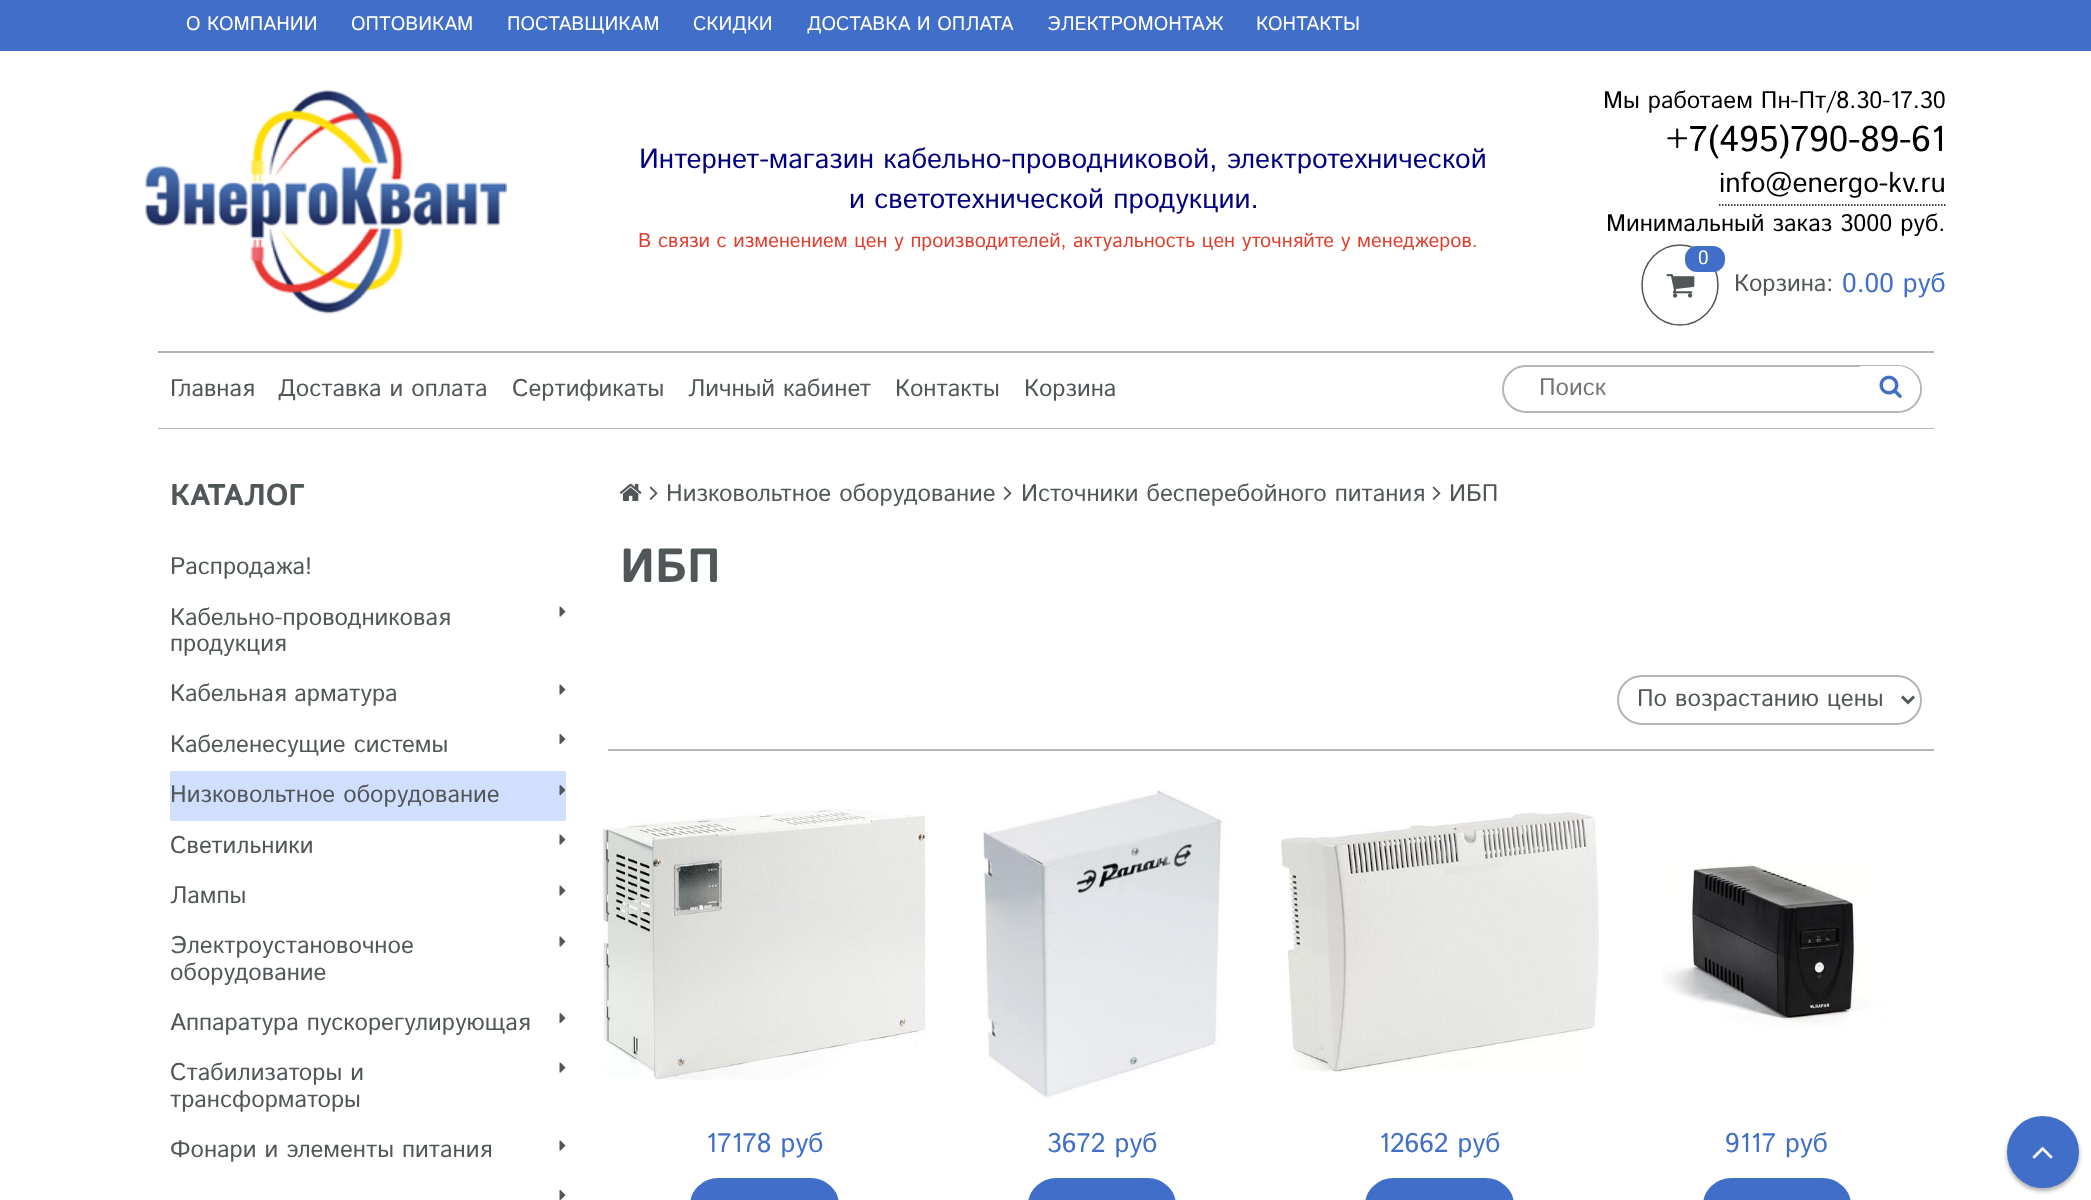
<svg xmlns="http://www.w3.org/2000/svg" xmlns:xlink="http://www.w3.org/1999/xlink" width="2091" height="1200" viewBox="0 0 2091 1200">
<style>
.cls-1{font:19.5px Istok Web;fill:#ffffff}
.cls-2{font:28px Istok Web;fill:#000080}
.cls-3{font:20px Istok Web;fill:#e03e2d}
.cls-4{font:24px Istok Web;fill:#000000}
.cls-5{font:36px Istok Web;fill:#000000}
.cls-6{font:28px Istok Web;fill:#000000}
.cls-7{font:24px Istok Web;fill:#515759}
.cls-8{font:27px Istok Web;fill:#406ec9}
.cls-9{font:24px Istok Web;fill:#757575}
.cls-10{font:bold 30px Istok Web;fill:#515759}
.cls-11{font:bold 48px Istok Web;fill:#515759}
</style>
<rect width="100%" height="100%" fill="#ffffff"/>
<rect fill="#406ec9" x="0" y="0" width="2091" height="51"/>
<image xlink:href="image0.png" x="145" y="89" width="362" height="225"/>
<path fill="none" stroke="#000000" stroke-width="1.5" stroke-dasharray="1.5 1.5" d="M1719 205H1945.5"/>
<path fill="none" stroke="#555555" stroke-width="1.5" d="M1680 245C1701 245 1718 263 1718 285C1718 307 1701 325 1680 325C1659 325 1642 307 1642 285C1642 263 1659 245 1680 245Z"/>
<rect fill="#406ec9" x="1685" y="246" width="40" height="26" rx="12"/>
<image xlink:href="image1.png" x="1666" y="274" width="29" height="24"/>
<rect fill="#b5b5b5" x="158" y="351" width="1776" height="2"/>
<rect fill="#b5b5b5" x="158" y="428" width="1776" height="1"/>
<rect fill="none" stroke="#b5b5b5" stroke-width="2" x="1503" y="366" width="418" height="46" rx="23"/>
<path fill="#ffffff" d="M1860 366H1897.5C1910 366 1920 376 1920 388.5C1920 401 1910 411 1897.5 411H1860Z"/>
<image xlink:href="image2.png" x="1879" y="375" width="23" height="23"/>
<image xlink:href="image3.png" x="559" y="606" width="7" height="11"/>
<image xlink:href="image3.png" x="559" y="684" width="7" height="11"/>
<image xlink:href="image4.png" x="559" y="734" width="7" height="11"/>
<rect fill="#d1dfff" x="170" y="771" width="396" height="50"/>
<image xlink:href="image5.png" x="559" y="785" width="7" height="11"/>
<image xlink:href="image3.png" x="559" y="834" width="7" height="11"/>
<image xlink:href="image3.png" x="559" y="885" width="7" height="11"/>
<image xlink:href="image3.png" x="559" y="936" width="7" height="11"/>
<image xlink:href="image4.png" x="559" y="1013" width="7" height="11"/>
<image xlink:href="image3.png" x="559" y="1062" width="7" height="11"/>
<image xlink:href="image3.png" x="559" y="1140" width="7" height="11"/>
<image xlink:href="image6.png" x="559" y="1190" width="7" height="10"/>
<image xlink:href="image7.png" x="619" y="483" width="23" height="18"/>
<image xlink:href="image8.png" x="649" y="486" width="9" height="14"/>
<image xlink:href="image8.png" x="1003" y="486" width="9" height="14"/>
<image xlink:href="image8.png" x="1432" y="486" width="9" height="14"/>
<rect fill="#b5b5b5" x="608" y="749" width="1326" height="2"/>
<rect fill="none" stroke="#b5b5b5" stroke-width="2" x="1618" y="676" width="303" height="48" rx="24"/>
<path fill="none" stroke="#515759" stroke-width="3" d="M1902 696.5L1908 702.5L1914 696.5"/>
<image xlink:href="image9.png" x="602" y="809" width="326" height="271"/>
<rect fill="#406ec9" stroke="#406ec9" stroke-width="3" x="691.5" y="1179.5" width="146" height="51" rx="27"/>
<image xlink:href="image10.png" x="983" y="790" width="242" height="309"/>
<rect fill="#406ec9" stroke="#406ec9" stroke-width="3" x="1029.5" y="1179.5" width="145" height="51" rx="27"/>
<image xlink:href="image11.png" x="1281" y="812" width="318" height="260"/>
<rect fill="#406ec9" stroke="#406ec9" stroke-width="3" x="1366.5" y="1179.5" width="146" height="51" rx="27"/>
<image xlink:href="image12.png" x="1663" y="863" width="222" height="164"/>
<rect fill="#406ec9" stroke="#406ec9" stroke-width="3" x="1704.5" y="1179.5" width="145" height="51" rx="27"/>
<rect fill="#333333" fill-opacity="0.42" filter="blur(2px)" x="2007" y="1119" width="72" height="72" rx="36"/>
<circle fill="#406ec9" stroke="#406ec9" stroke-width="3" cx="2043" cy="1152" r="34.5"/>
<image xlink:href="image13.png" x="2032" y="1147" width="21" height="12"/>
<text class="cls-1" x="186" y="30">О КОМПАНИИ</text>
<text class="cls-1" x="351" y="30">ОПТОВИКАМ</text>
<text class="cls-1" x="507" y="30">ПОСТАВЩИКАМ</text>
<text class="cls-1" x="693" y="30">СКИДКИ</text>
<text class="cls-1" x="807" y="30">ДОСТАВКА И ОПЛАТА</text>
<text class="cls-1" x="1047" y="30">ЭЛЕКТРОМОНТАЖ</text>
<text class="cls-1" x="1256" y="30">КОНТАКТЫ</text>
<text class="cls-2" x="639" y="168">Интернет-магазин кабельно-проводниковой, электротехнической</text>
<text class="cls-2" x="849" y="208">и светотехнической продукции.</text>
<text class="cls-3" x="638" y="247">В связи с изменением цен у производителей, актуальность цен уточняйте у менеджеров.</text>
<text class="cls-4" x="1603" y="108">Мы работаем Пн-Пт/8.30-17.30</text>
<text class="cls-5" x="1666" y="151">+7(495)790-89-61</text>
<text class="cls-6" x="1719" y="192">info@energo-kv.ru</text>
<text class="cls-4" x="1606" y="231">Минимальный заказ 3000 руб.</text>
<text class="cls-1" x="1698" y="264">0</text>
<text class="cls-7" x="1734" y="291">Корзина:</text>
<text class="cls-8" x="1842" y="292">0.00 руб</text>
<text class="cls-7" x="170" y="396">Главная</text>
<text class="cls-7" x="278" y="396">Доставка и оплата</text>
<text class="cls-7" x="512" y="396">Сертификаты</text>
<text class="cls-7" x="688" y="396">Личный кабинет</text>
<text class="cls-7" x="895" y="396">Контакты</text>
<text class="cls-7" x="1024" y="396">Корзина</text>
<text class="cls-9" x="1539" y="395">Поиск</text>
<text class="cls-10" x="170" y="505">КАТАЛОГ</text>
<text class="cls-7" x="170" y="574">Распродажа!</text>
<text class="cls-7"><tspan x="170" y="625">Кабельно-проводниковая</tspan><tspan x="170" y="651">продукция</tspan></text>
<text class="cls-7" x="170" y="701">Кабельная арматура</text>
<text class="cls-7" x="170" y="752">Кабеленесущие системы</text>
<text class="cls-7" x="170" y="802">Низковольтное оборудование</text>
<text class="cls-7" x="170" y="853">Светильники</text>
<text class="cls-7" x="170" y="903">Лампы</text>
<text class="cls-7"><tspan x="170" y="953">Электроустановочное</tspan><tspan x="170" y="980">оборудование</tspan></text>
<text class="cls-7" x="170" y="1030">Аппаратура пускорегулирующая</text>
<text class="cls-7"><tspan x="170" y="1080">Стабилизаторы и</tspan><tspan x="170" y="1107">трансформаторы</tspan></text>
<text class="cls-7" x="170" y="1157">Фонари и элементы питания</text>
<text class="cls-7" x="666" y="501">Низковольтное оборудование</text>
<text class="cls-7" x="1021" y="501">Источники бесперебойного питания</text>
<text class="cls-7" x="1449" y="501">ИБП</text>
<text class="cls-11" x="620" y="582">ИБП</text>
<text class="cls-7" x="1637" y="706">По возрастанию цены</text>
<text class="cls-8" x="706" y="1152">17178 руб</text>
<text class="cls-8" x="1047" y="1152">3672 руб</text>
<text class="cls-8" x="1379" y="1152">12662 руб</text>
<text class="cls-8" x="1725" y="1152">9117 руб</text>
</svg>
